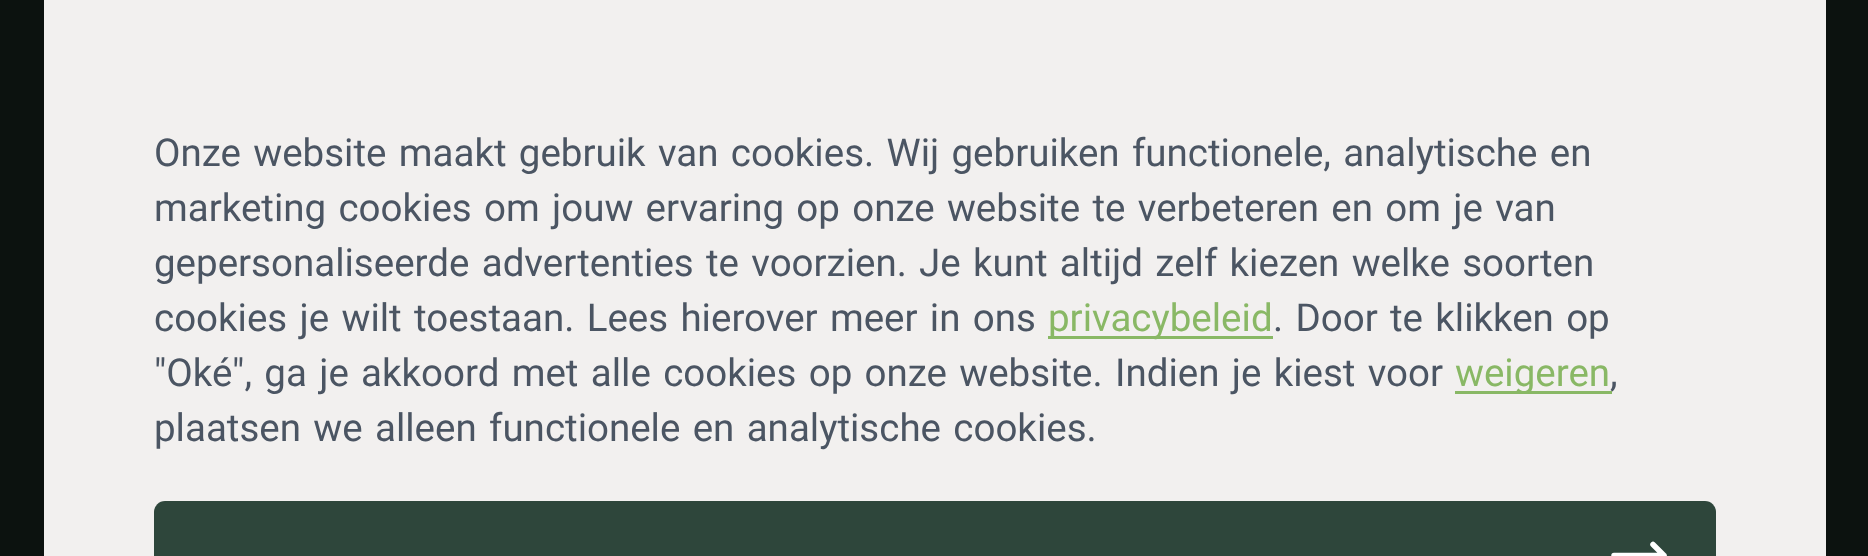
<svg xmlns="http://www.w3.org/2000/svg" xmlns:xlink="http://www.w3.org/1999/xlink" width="1868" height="556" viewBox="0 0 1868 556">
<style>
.cls-1{font:38.5px Roboto;fill:#4b5563}
.cls-2{font:38.5px Roboto;fill:#89b865}
</style>
<rect width="100%" height="100%" fill="#0c120f"/>
<rect fill="#f2f0ef" x="44" y="0" width="1782" height="556"/>
<rect fill="#89b865" x="1048" y="336" width="225" height="3"/>
<rect fill="#89b865" x="1455" y="391" width="157" height="3"/>
<rect fill="#2e463b" x="154" y="501" width="1562" height="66" rx="11"/>
<path fill="none" stroke="#ffffff" stroke-width="5.5" stroke-linecap="round" stroke-linejoin="round" d="M1653 544.5L1664 555.5M1664 555.5L1653 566.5M1664 555.5H1614"/>
<text class="cls-1"><tspan x="154" y="166" word-spacing="2.75">Onze website maakt gebruik van cookies. Wij gebruiken functionele, analytische en</tspan><tspan x="154" y="221" word-spacing="2.75">marketing cookies om jouw ervaring op onze website te verbeteren en om je van</tspan><tspan x="154" y="276" word-spacing="2.75">gepersonaliseerde advertenties te voorzien.</tspan></text>
<text class="cls-1" x="919" y="276" word-spacing="2.75">Je kunt altijd zelf kiezen welke soorten</text>
<text class="cls-1" x="154" y="331" word-spacing="2.75">cookies je wilt toestaan. Lees hierover meer in ons</text>
<text class="cls-2" x="1048" y="331">privacybeleid</text>
<text class="cls-1" x="1273" y="331" word-spacing="2.75">. Door te klikken op</text>
<text class="cls-1" x="154" y="386" word-spacing="2.75">"Oké", ga je akkoord met alle cookies op onze website. Indien je kiest voor</text>
<text class="cls-2" x="1455" y="386">weigeren</text>
<text class="cls-1" x="1610" y="386">,</text>
<text class="cls-1" x="154" y="441" word-spacing="2.75">plaatsen we alleen functionele en analytische cookies.</text>
</svg>
